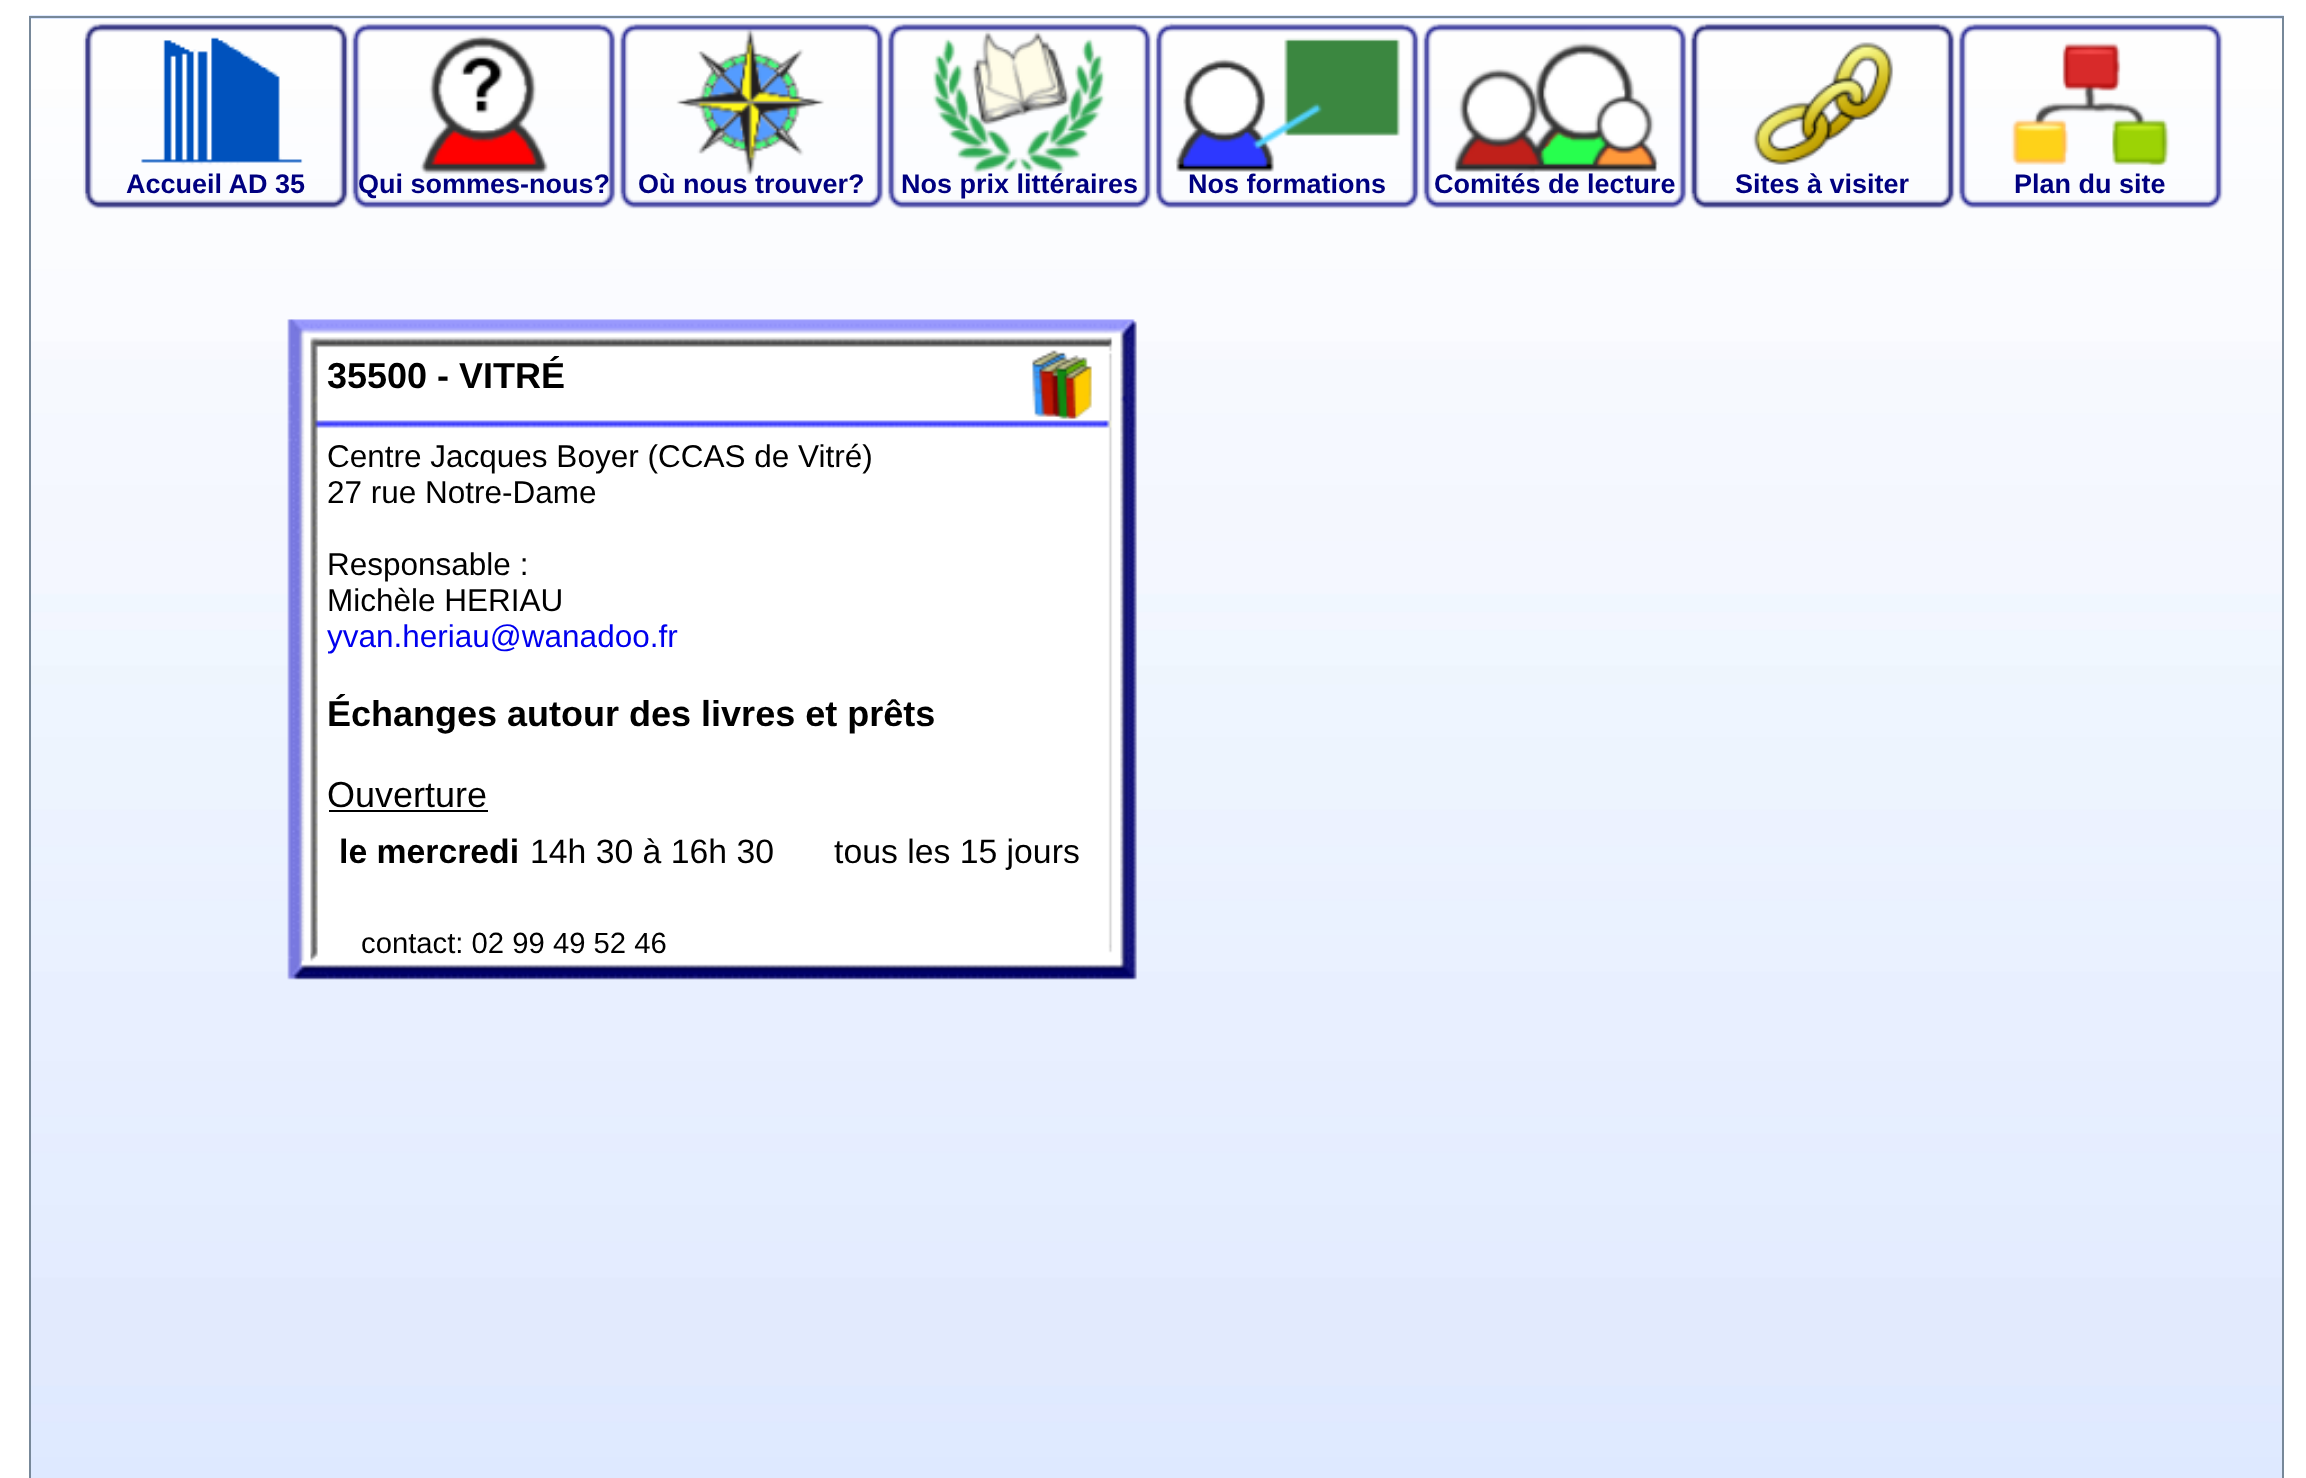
<svg xmlns="http://www.w3.org/2000/svg" xmlns:xlink="http://www.w3.org/1999/xlink" width="2306" height="1478" viewBox="0 0 2306 1478">
<style>
.cls-1{font:bold 27px Liberation Sans;fill:#000080}
.cls-2{font:bold 36px Liberation Sans;fill:#000000}
.cls-3{font:31.5px Liberation Sans;fill:#000000}
.cls-4{font:31.5px Liberation Sans;fill:#0000ee}
.cls-5{font:36px Liberation Sans;fill:#000000}
.cls-6{font:bold 33.75px Liberation Sans;fill:#000000}
.cls-7{font:33.75px Liberation Sans;fill:#000000}
.cls-8{font:29.25px Liberation Sans;fill:#000000}
</style>
<rect width="100%" height="100%" fill="#ffffff"/>
<image xlink:href="image0.png" x="29" y="15" width="2255" height="1463"/>
<rect fill="none" stroke="#778899" stroke-width="2" x="30" y="17" width="2253" height="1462"/>
<image xlink:href="image1.png" x="83" y="22" width="266" height="188"/>
<image xlink:href="image2.png" x="351" y="22" width="266" height="187"/>
<image xlink:href="image3.png" x="619" y="22" width="265" height="187"/>
<image xlink:href="image4.png" x="886" y="22" width="266" height="187"/>
<image xlink:href="image5.png" x="1154" y="22" width="266" height="187"/>
<image xlink:href="image6.png" x="1422" y="22" width="266" height="187"/>
<image xlink:href="image7.png" x="1689" y="22" width="267" height="188"/>
<image xlink:href="image8.png" x="1957" y="22" width="266" height="187"/>
<image xlink:href="image9.png" x="287" y="319" width="850" height="661"/>
<rect fill="#000000" x="329" y="810" width="159" height="2"/>
<text class="cls-1" x="126" y="193">Accueil AD 35</text>
<text class="cls-1" x="358" y="193">Qui sommes-nous?</text>
<text class="cls-1" x="638" y="193">Où nous trouver?</text>
<text class="cls-1" x="901" y="193">Nos prix littéraires</text>
<text class="cls-1" x="1188" y="193">Nos formations</text>
<text class="cls-1" x="1434" y="193">Comités de lecture</text>
<text class="cls-1" x="1735" y="193">Sites à visiter</text>
<text class="cls-1" x="2014" y="193">Plan du site</text>
<text class="cls-2" x="327" y="388">35500 - VITRÉ</text>
<text class="cls-3"><tspan x="327" y="467">Centre Jacques Boyer (CCAS de Vitré)</tspan><tspan x="327" y="503">27 rue Notre-Dame</tspan></text>
<text class="cls-3"><tspan x="327" y="575">Responsable :</tspan><tspan x="327" y="611">Michèle HERIAU</tspan></text>
<text class="cls-4" x="327" y="647">yvan.heriau@wanadoo.fr</text>
<text class="cls-2" x="327" y="726">Échanges autour des livres et prêts</text>
<text class="cls-5" x="327" y="807">Ouverture</text>
<text class="cls-6" x="339" y="863">le mercredi</text>
<text class="cls-7" x="530" y="863">14h 30 à 16h 30</text>
<text class="cls-7" x="834" y="863">tous les 15 jours</text>
<text class="cls-8" x="361" y="953">contact: 02 99 49 52 46</text>
</svg>
